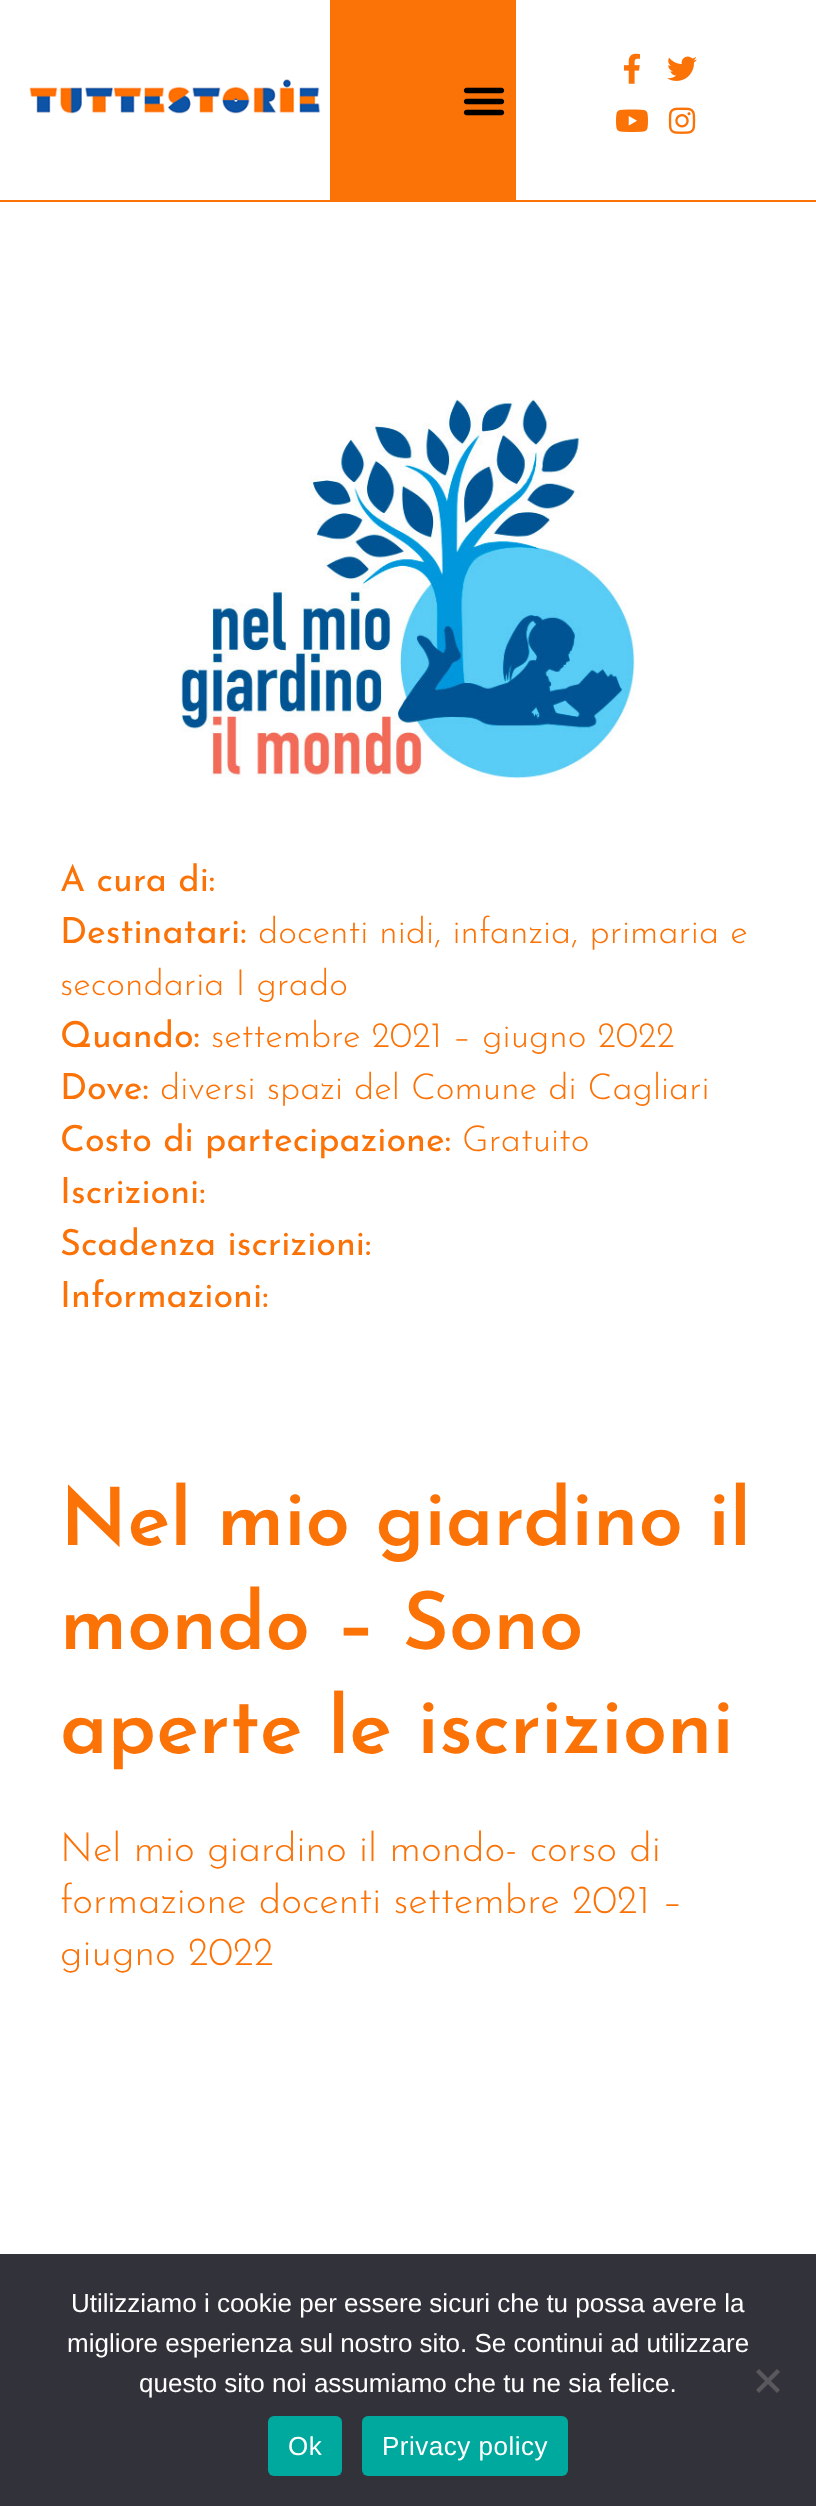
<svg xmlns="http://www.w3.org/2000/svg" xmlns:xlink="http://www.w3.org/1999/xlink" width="816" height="2506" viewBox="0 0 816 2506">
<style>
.cls-1{font:36px Josefin Sans;fill:#fb7206}
.cls-2{font:300 36px Josefin Sans;fill:#fb7206}
.cls-3{font:600 80px Josefin Sans;fill:#fb7206}
.cls-4{font:300 40px Josefin Sans;fill:#fb7206}
.cls-5{font:26px Liberation Sans;fill:#ffffff}
.cls-6{font:26px Liberation Sans;letter-spacing:0.5px;fill:#ffffff}
</style>
<rect width="100%" height="100%" fill="#ffffff"/>
<rect fill="#fb7206" x="0" y="200" width="816" height="2"/>
<image xlink:href="image0.png" x="29" y="79" width="292" height="35"/>
<rect fill="#fb7206" x="330" y="0" width="186" height="200"/>
<image xlink:href="image1.png" x="463" y="87" width="42" height="29"/>
<image xlink:href="image2.png" x="623" y="53" width="18" height="31"/>
<image xlink:href="image3.png" x="667" y="56" width="30" height="25"/>
<image xlink:href="image4.png" x="616" y="109" width="32" height="23"/>
<image xlink:href="image5.png" x="668" y="107" width="28" height="27"/>
<image xlink:href="image6.png" x="181" y="399" width="454" height="380"/>
<rect fill="#32323a" x="0" y="2254" width="816" height="252"/>
<path fill="#59595d" d="M777 2369L780 2372L759 2393L756 2390Z"/>
<path fill="#59595d" d="M756 2372L759 2369L780 2390L777 2393Z"/>
<rect fill="#00a99d" x="268" y="2416" width="74" height="60" rx="6"/>
<rect fill="#00a99d" x="362" y="2416" width="206" height="60" rx="6"/>
<text class="cls-1"><tspan x="60" y="891">A cura di:</tspan><tspan x="60" y="943">Destinatari:</tspan></text>
<text class="cls-2" x="258" y="943">docenti nidi, infanzia, primaria e</text>
<text class="cls-2" x="60" y="995">secondaria I grado</text>
<text class="cls-1" x="60" y="1047">Quando:</text>
<text class="cls-2" x="211" y="1047">settembre 2021 – giugno 2022</text>
<text class="cls-1" x="60" y="1099">Dove:</text>
<text class="cls-2" x="160" y="1099">diversi spazi del Comune di Cagliari</text>
<text class="cls-1" x="60" y="1151">Costo di partecipazione:</text>
<text class="cls-2" x="462" y="1151">Gratuito</text>
<text class="cls-1"><tspan x="60" y="1203">Iscrizioni:</tspan><tspan x="60" y="1255">Scadenza iscrizioni:</tspan><tspan x="60" y="1307">Informazioni:</tspan></text>
<text class="cls-3"><tspan x="60" y="1545">Nel mio giardino il</tspan><tspan x="60" y="1649">mondo – Sono</tspan><tspan x="60" y="1753">aperte le iscrizioni</tspan></text>
<text class="cls-4"><tspan x="60" y="1861">Nel mio giardino il mondo- corso di</tspan><tspan x="60" y="1913">formazione docenti settembre 2021 –</tspan><tspan x="60" y="1965">giugno 2022</tspan></text>
<text class="cls-5" x="71" y="2312">Utilizziamo i cookie per essere sicuri che tu possa avere la</text>
<text class="cls-5" x="67" y="2352">migliore esperienza sul nostro sito. Se continui ad utilizzare</text>
<text class="cls-5" x="139" y="2392">questo sito noi assumiamo che tu ne sia felice.</text>
<text class="cls-6" x="288" y="2455">Ok</text>
<text class="cls-6" x="382" y="2455">Privacy policy</text>
</svg>
